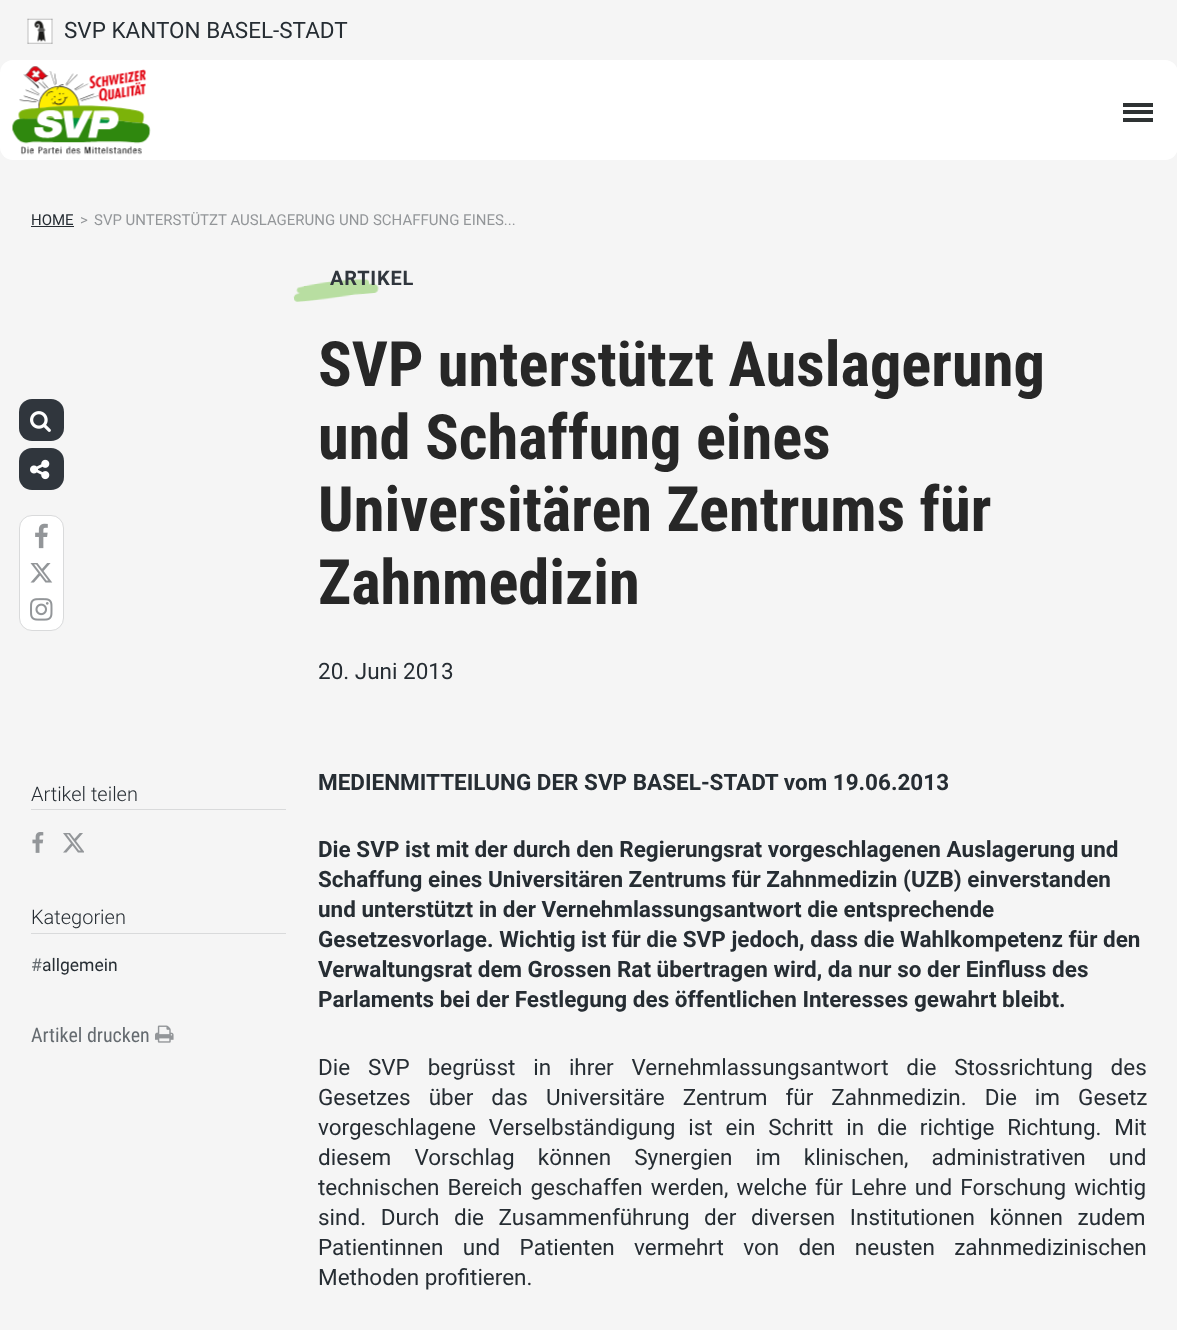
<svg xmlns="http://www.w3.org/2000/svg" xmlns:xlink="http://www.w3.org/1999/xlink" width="1177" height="1330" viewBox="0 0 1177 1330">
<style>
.cls-1{font:22.5px Roboto;fill:#262d33}
.cls-2{font:15px Roboto;fill:#262d33}
.cls-3{font:15px Roboto;fill:#939699}
.cls-4{font:300 20px Roboto;fill:#262d33}
.cls-5{font:17.5px Roboto;fill:#656b70}
.cls-6{font:17.5px Roboto;fill:#262d33}
.cls-7{font:20px Roboto Condensed;fill:#656b70}
.cls-8{font:bold 20px Roboto;letter-spacing:0.75px;fill:#30363d}
.cls-9{font:bold 62.5px Roboto Condensed;fill:#272727}
.cls-10{font:bold 22.5px Roboto;fill:#262d33}
</style>
<rect width="100%" height="100%" fill="#f5f5f5"/>
<image xlink:href="image0.png" x="27" y="18" width="26" height="26"/>
<rect fill="#ffffff" x="0" y="60" width="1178" height="100" rx="13"/>
<image xlink:href="image1.png" x="12" y="66" width="139" height="89"/>
<rect fill="#2e3233" x="1123" y="110" width="30" height="4"/>
<rect fill="#2e3233" x="1123" y="103" width="30" height="4"/>
<rect fill="#2e3233" x="1123" y="118" width="30" height="4"/>
<rect fill="#262d33" x="31" y="226" width="43" height="1"/>
<rect fill="#d9dadb" x="31" y="809" width="255" height="1"/>
<image xlink:href="image2.png" x="32" y="832" width="12" height="21"/>
<image xlink:href="image3.png" x="63" y="833" width="21" height="20"/>
<rect fill="#d9dadb" x="31" y="933" width="255" height="1"/>
<image xlink:href="image4.png" x="155" y="1025" width="19" height="18"/>
<image xlink:href="image5.png" x="293" y="278" width="86" height="24"/>
<rect fill="#30363d" x="19" y="399" width="45" height="42" rx="13"/>
<image xlink:href="image6.png" x="30" y="411" width="21" height="21"/>
<rect fill="#30363d" x="19" y="448" width="45" height="42" rx="13"/>
<image xlink:href="image7.png" x="30" y="459" width="20" height="21"/>
<rect fill="#ffffff" stroke="#d9dadb" x="19.5" y="515.5" width="44" height="115" rx="12.5"/>
<image xlink:href="image8.png" x="35" y="523" width="13" height="26"/>
<image xlink:href="image9.png" x="30" y="563" width="23" height="20"/>
<image xlink:href="image10.png" x="30" y="598" width="23" height="23"/>
<text class="cls-1" x="64" y="38">SVP KANTON BASEL-STADT</text>
<text class="cls-2" x="31" y="225">HOME</text>
<text class="cls-3" x="80" y="225">&gt;</text>
<text class="cls-3" x="94" y="225">SVP UNTERSTÜTZT AUSLAGERUNG UND SCHAFFUNG EINES...</text>
<text class="cls-4" x="31" y="801">Artikel teilen</text>
<text class="cls-4" x="31" y="924">Kategorien</text>
<text class="cls-5" x="31" y="971">#</text>
<text class="cls-6" x="42" y="971">allgemein</text>
<text class="cls-7" x="31" y="1042">Artikel drucken</text>
<text class="cls-8" x="330" y="285">ARTIKEL</text>
<text class="cls-9"><tspan x="318" y="386">SVP unterstützt Auslagerung</tspan><tspan x="318" y="459">und Schaffung eines</tspan><tspan x="318" y="531">Universitären Zentrums für</tspan><tspan x="318" y="604">Zahnmedizin</tspan></text>
<text class="cls-1" x="318" y="679">20. Juni 2013</text>
<text class="cls-10" x="318" y="790">MEDIENMITTEILUNG DER SVP BASEL-STADT vom 19.06.2013</text>
<text class="cls-10"><tspan x="318" y="857">Die SVP ist mit der durch den Regierungsrat vorgeschlagenen Auslagerung und</tspan><tspan x="318" y="887">Schaffung eines Universitären Zentrums für Zahnmedizin (UZB) einverstanden</tspan><tspan x="318" y="917">und unterstützt in der Vernehmlassungsantwort die entsprechende</tspan><tspan x="318" y="947">Gesetzesvorlage. Wichtig ist für die SVP jedoch, dass die Wahlkompetenz für den</tspan><tspan x="318" y="977">Verwaltungsrat dem Grossen Rat übertragen wird, da nur so der Einfluss des</tspan><tspan x="318" y="1007">Parlaments bei der Festlegung des öffentlichen Interesses gewahrt bleibt.</tspan></text>
<text class="cls-1"><tspan x="318" y="1075" word-spacing="12.25">Die SVP begrüsst in ihrer Vernehmlassungsantwort die Stossrichtung des</tspan><tspan x="318" y="1105" word-spacing="12.5">Gesetzes über das Universitäre Zentrum für Zahnmedizin. Die im Gesetz</tspan><tspan x="318" y="1135" word-spacing="7.25">vorgeschlagene Verselbständigung ist ein Schritt in die richtige Richtung. Mit</tspan><tspan x="318" y="1165" word-spacing="17.5">diesem Vorschlag können Synergien im klinischen, administrativen und</tspan><tspan x="318" y="1195" word-spacing="2.5">technischen Bereich geschaffen werden, welche für Lehre und Forschung wichtig</tspan><tspan x="318" y="1225" word-spacing="9">sind. Durch die Zusammenführung der diversen Institutionen können zudem</tspan><tspan x="318" y="1255" word-spacing="13.75">Patientinnen und Patienten vermehrt von den neusten zahnmedizinischen</tspan><tspan x="318" y="1285">Methoden profitieren.</tspan></text>
</svg>
